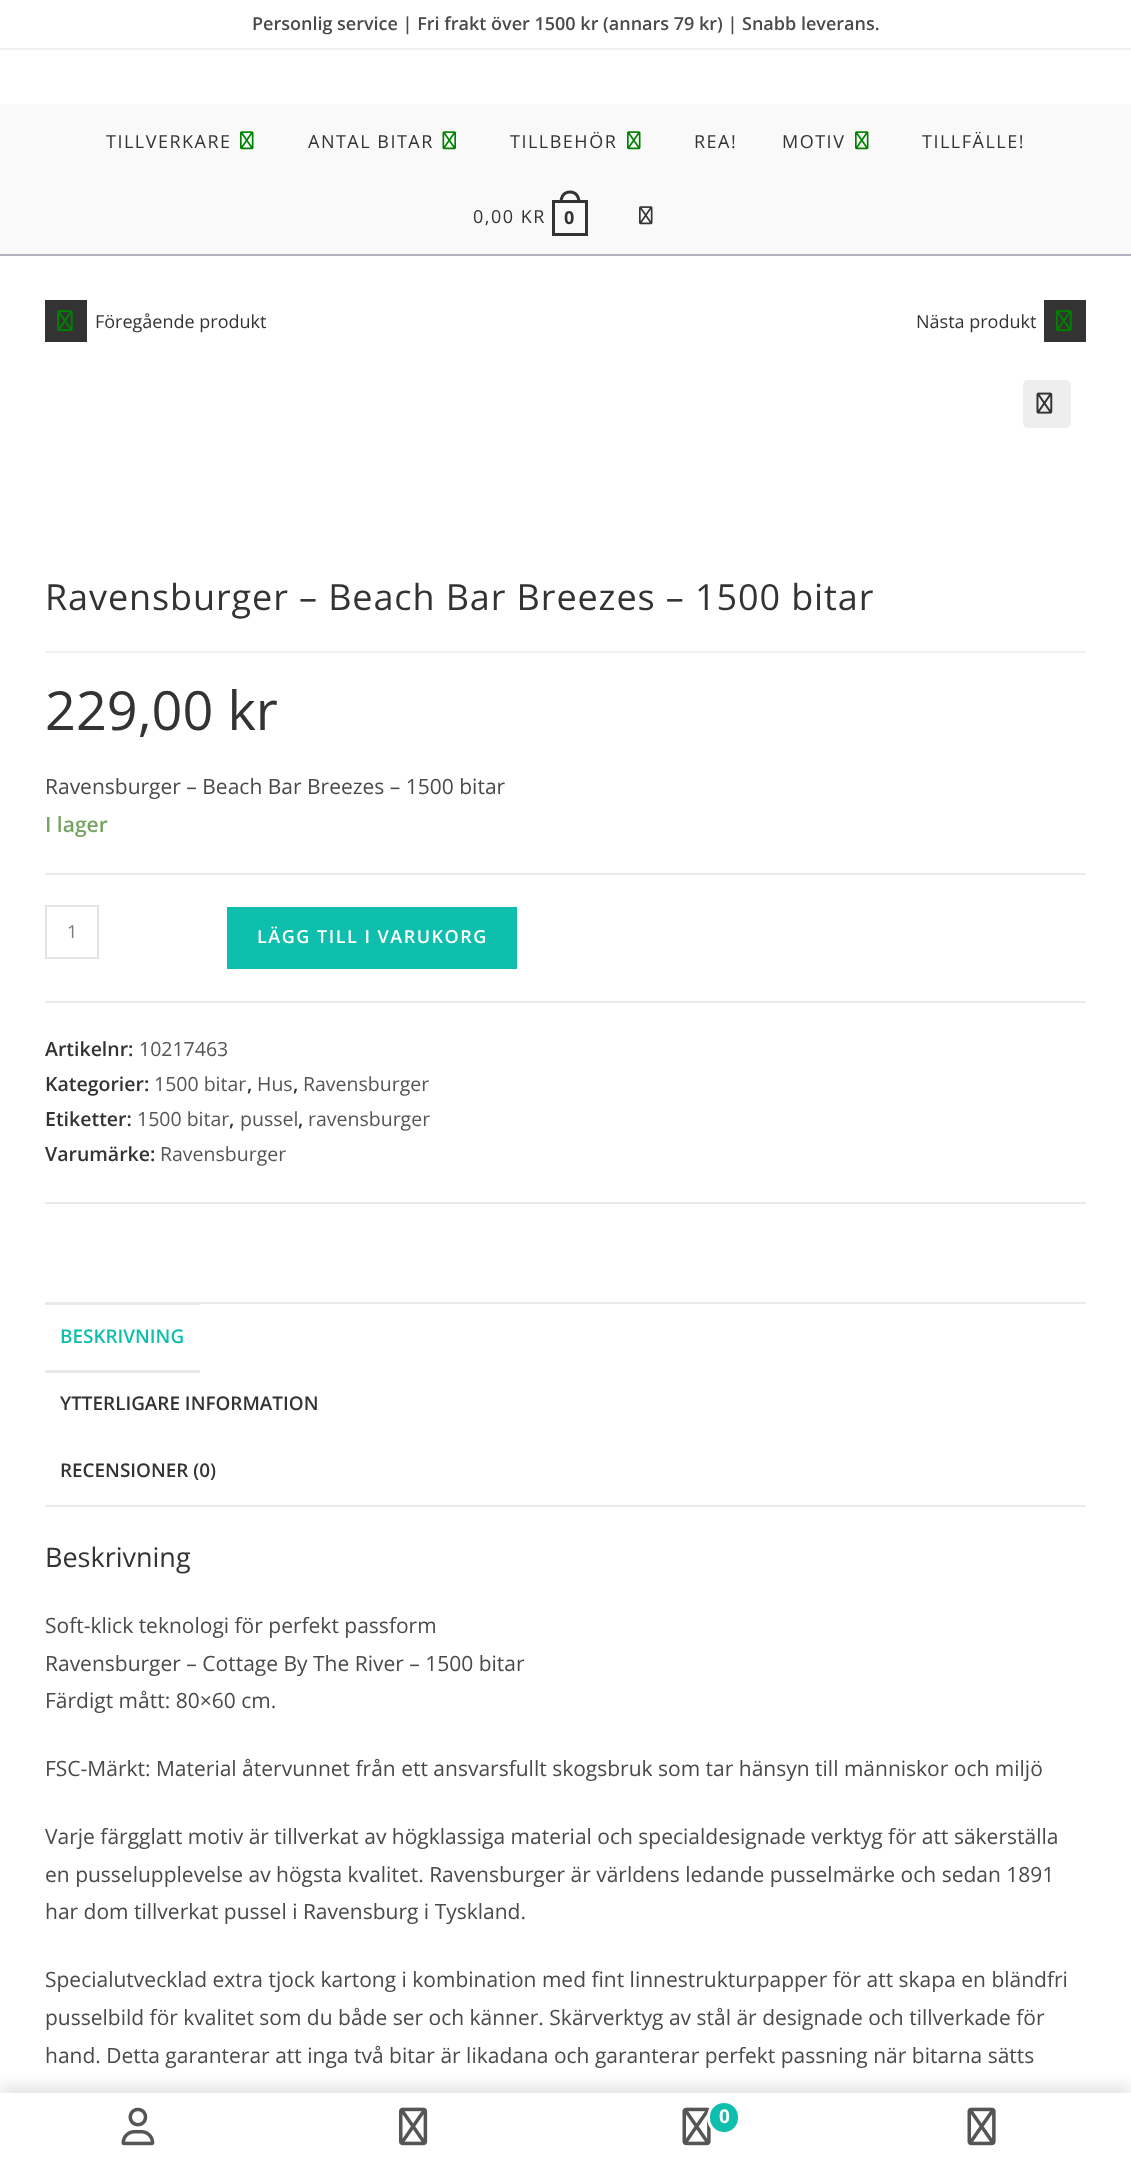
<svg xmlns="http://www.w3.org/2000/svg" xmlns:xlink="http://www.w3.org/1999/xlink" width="1131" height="2160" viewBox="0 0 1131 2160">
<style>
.cls-1{font:600 18px Open Sans;fill:#4a4a4a}
.cls-2{font:18px Open Sans;letter-spacing:1.5px;fill:#333333}
.cls-3{font:bold 18px Open Sans;letter-spacing:1.5px;fill:#333333}
.cls-4{font:18px Open Sans;fill:#333333}
.cls-5{font:36px Open Sans;letter-spacing:0.9px;fill:#333333}
.cls-6{font:54px Open Sans;fill:#333333}
.cls-7{font:21px Open Sans;fill:#4a4a4a}
.cls-8{font:600 21px Open Sans;fill:#77a464}
.cls-9{font:18px Open Sans;fill:#777777}
.cls-10{font:600 18px Open Sans;letter-spacing:1.5px;fill:#ffffff}
.cls-11{font:600 19.5px Open Sans;fill:#333333}
.cls-12{font:19.5px Open Sans;fill:#555555}
.cls-13{font:600 18.9px Open Sans;fill:#0fbfad}
.cls-14{font:600 18.9px Open Sans;fill:#333333}
.cls-15{font:27px Open Sans;fill:#333333}
.cls-16{font:bold 19px Open Sans;fill:#ffffff}
</style>
<rect width="100%" height="100%" fill="#ffffff"/>
<rect fill="#f1f1f1" x="0" y="48" width="1131" height="2"/>
<rect fill="#b1b3bc" x="0" y="254" width="1131" height="2"/>
<rect fill="#f9f9f9" x="0" y="104" width="1131" height="150"/>
<image xlink:href="image0.png" x="240" y="131" width="14" height="19"/>
<image xlink:href="image1.png" x="442" y="131" width="14" height="19"/>
<image xlink:href="image0.png" x="627" y="131" width="14" height="19"/>
<image xlink:href="image0.png" x="855" y="131" width="14" height="19"/>
<rect fill="none" stroke="#333333" stroke-width="3" x="553.5" y="201.5" width="33" height="33"/>
<path fill="#333333" fill-rule="evenodd" d="M570 190.5C577 190.5 580.5 196 580.5 202.5H559.5C559.5 196 563 190.5 570 190.5ZM570 193.5C575.5 193.5 577.5 198 577.5 202.5H562.5C562.5 198 564.5 193.5 570 193.5Z"/>
<image xlink:href="image2.png" x="639" y="206" width="14" height="19"/>
<rect fill="#333333" x="45" y="300" width="42" height="42"/>
<image xlink:href="image3.png" x="57" y="310" width="16" height="22"/>
<rect fill="#333333" x="1044" y="300" width="42" height="42"/>
<image xlink:href="image3.png" x="1056" y="310" width="16" height="22"/>
<rect fill="#eeeeee" x="1023" y="380" width="48" height="48" rx="5"/>
<image xlink:href="image4.png" x="1036" y="392" width="17" height="22"/>
<rect fill="#f1f1f1" x="45" y="651" width="1041" height="2"/>
<rect fill="#eaeaea" x="45" y="873" width="1041" height="2"/>
<rect fill="#eaeaea" x="45" y="1001" width="1041" height="2"/>
<rect fill="none" stroke="#e4e4e4" stroke-width="2" x="46" y="906" width="52" height="52"/>
<rect fill="#0fbfad" x="227" y="907" width="290" height="62"/>
<rect fill="#eaeaea" x="45" y="1202" width="1041" height="2"/>
<rect fill="#eaeaea" x="200" y="1302" width="886" height="2"/>
<rect fill="#eaeaea" x="45" y="1505" width="1041" height="2"/>
<rect fill="#e9e9e9" x="45" y="1302" width="155" height="3"/>
<rect fill="#e9e9e9" x="45" y="1370" width="155" height="3"/>
<rect fill="#000000" fill-opacity="0.1" filter="blur(7.5px)" x="0" y="2085" width="1131" height="68"/>
<rect fill="#ffffff" x="0" y="2093" width="1131" height="67"/>
<image xlink:href="image5.png" x="121" y="2107" width="34" height="39"/>
<image xlink:href="image6.png" x="399" y="2107" width="29" height="39"/>
<image xlink:href="image7.png" x="682" y="2107" width="29" height="39"/>
<rect fill="#0fbfad" stroke="#ffffff" stroke-width="3" x="708.5" y="2101.5" width="31" height="32" rx="15.5"/>
<image xlink:href="image7.png" x="967" y="2107" width="29" height="39"/>
<text class="cls-1" x="252" y="30">Personlig service | Fri frakt över 1500 kr (annars 79 kr) | Snabb leverans.</text>
<text class="cls-2" x="106" y="148">TILLVERKARE</text>
<text class="cls-2" x="308" y="148">ANTAL BITAR</text>
<text class="cls-2" x="510" y="148">TILLBEHÖR</text>
<text class="cls-2" x="694" y="148">REA!</text>
<text class="cls-2" x="782" y="148">MOTIV</text>
<text class="cls-2" x="922" y="148">TILLFÄLLE!</text>
<text class="cls-2" x="473" y="223">0,00 KR</text>
<text class="cls-3" x="564" y="224">0</text>
<text class="cls-4" x="95" y="328">Föregående produkt</text>
<text class="cls-4" x="916" y="328">Nästa produkt</text>
<text class="cls-5" x="45" y="610">Ravensburger – Beach Bar Breezes – 1500 bitar</text>
<text class="cls-6" x="45" y="730">229,00 kr</text>
<text class="cls-7" x="45" y="794">Ravensburger – Beach Bar Breezes – 1500 bitar</text>
<text class="cls-8" x="45" y="832">I lager</text>
<text class="cls-9" x="67" y="938">1</text>
<text class="cls-10" x="257" y="943">LÄGG TILL I VARUKORG</text>
<text class="cls-11" x="45" y="1056">Artikelnr:</text>
<text class="cls-12" x="139" y="1056">10217463</text>
<text class="cls-11" x="45" y="1091">Kategorier:</text>
<text class="cls-12" x="154" y="1091">1500 bitar</text>
<text class="cls-11" x="247" y="1091">,</text>
<text class="cls-12" x="257" y="1091">Hus</text>
<text class="cls-11" x="293" y="1091">,</text>
<text class="cls-12" x="303" y="1091">Ravensburger</text>
<text class="cls-11" x="45" y="1126">Etiketter:</text>
<text class="cls-12" x="137" y="1126">1500 bitar</text>
<text class="cls-11" x="229" y="1126">,</text>
<text class="cls-12" x="240" y="1126">pussel</text>
<text class="cls-11" x="298" y="1126">,</text>
<text class="cls-12" x="308" y="1126">ravensburger</text>
<text class="cls-11" x="45" y="1161">Varumärke:</text>
<text class="cls-12" x="160" y="1161">Ravensburger</text>
<text class="cls-13" x="60" y="1343">BESKRIVNING</text>
<text class="cls-14" x="60" y="1410">YTTERLIGARE INFORMATION</text>
<text class="cls-14" x="60" y="1477">RECENSIONER (0)</text>
<text class="cls-15" x="45" y="1567">Beskrivning</text>
<text class="cls-7"><tspan x="45" y="1633">Soft-klick teknologi för perfekt passform</tspan><tspan x="45" y="1671">Ravensburger – Cottage By The River – 1500 bitar</tspan><tspan x="45" y="1708">Färdigt mått: 80×60 cm.</tspan></text>
<text class="cls-7" x="45" y="1776">FSC-Märkt: Material återvunnet från ett ansvarsfullt skogsbruk som tar hänsyn till människor och miljö</text>
<text class="cls-7"><tspan x="45" y="1844">Varje färgglatt motiv är tillverkat av högklassiga material och specialdesignade verktyg för att säkerställa</tspan><tspan x="45" y="1882">en pusselupplevelse av högsta kvalitet. Ravensburger är världens ledande pusselmärke och sedan 1891</tspan><tspan x="45" y="1919">har dom tillverkat pussel i Ravensburg i Tyskland.</tspan></text>
<text class="cls-7"><tspan x="45" y="1987">Specialutvecklad extra tjock kartong i kombination med fint linnestrukturpapper för att skapa en bländfri</tspan><tspan x="45" y="2025">pusselbild för kvalitet som du både ser och känner. Skärverktyg av stål är designade och tillverkade för</tspan><tspan x="45" y="2063">hand. Detta garanterar att inga två bitar är likadana och garanterar perfekt passning när bitarna sätts</tspan></text>
<text class="cls-16" x="719" y="2123">0</text>
</svg>
